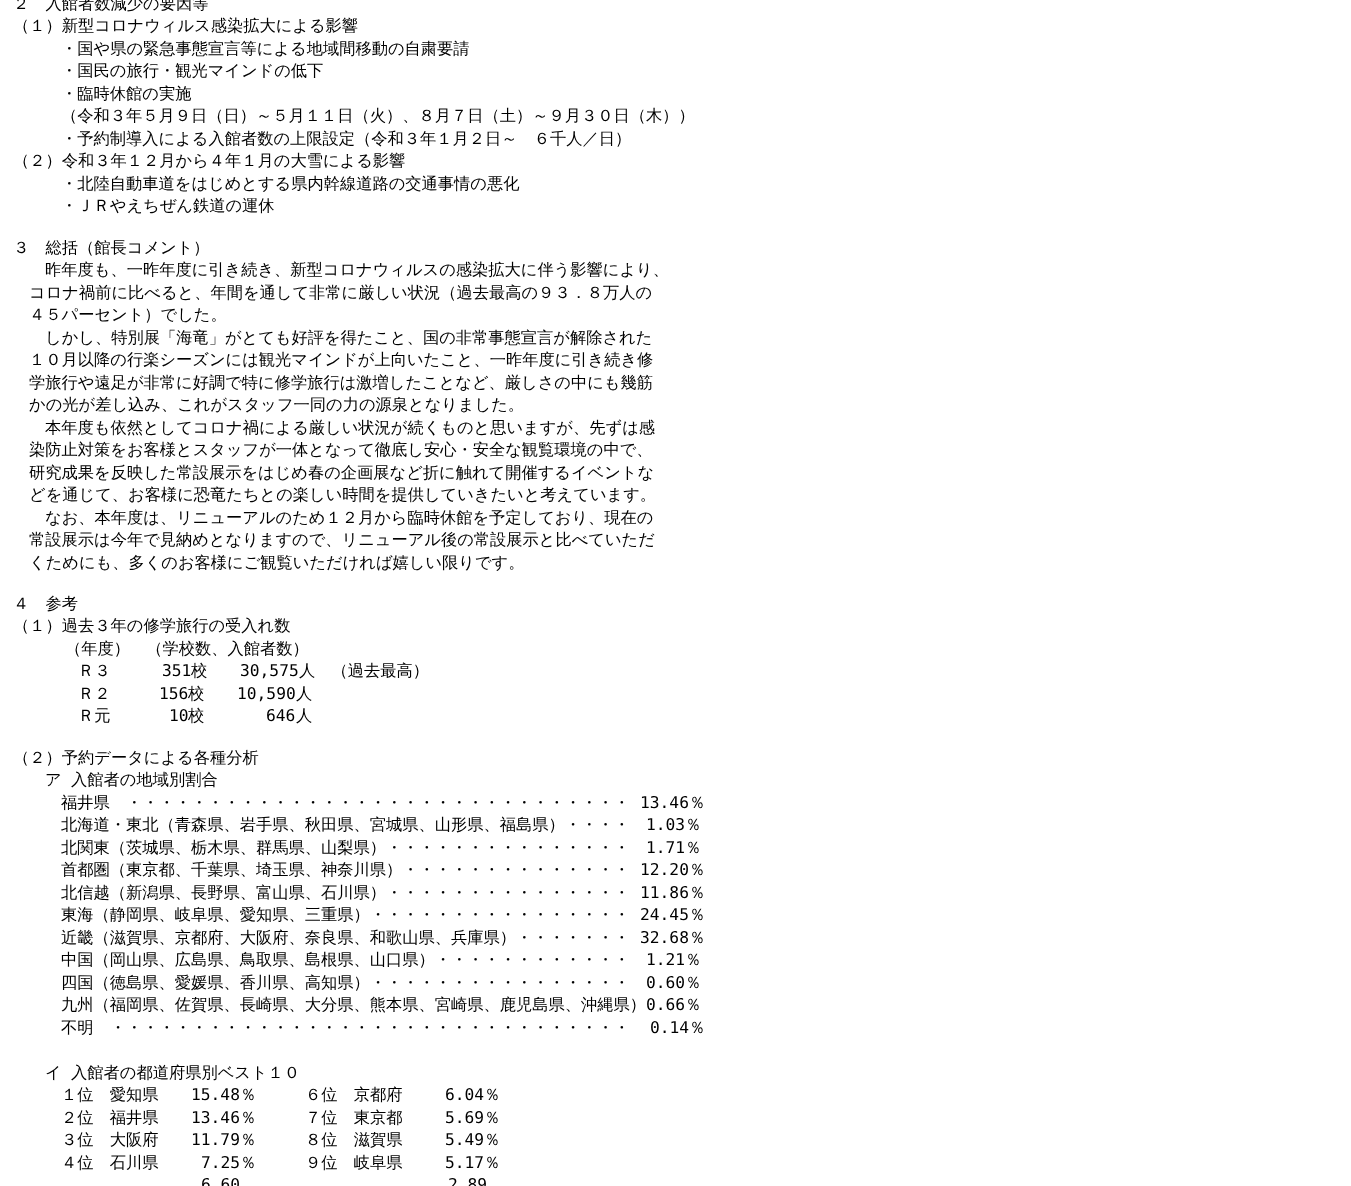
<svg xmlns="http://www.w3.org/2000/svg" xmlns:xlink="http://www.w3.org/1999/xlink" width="1351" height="1186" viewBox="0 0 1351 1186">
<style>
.cls-1{font:500 16.25px WenQuanYi Zen Hei;fill:#000000}
.cls-2{font:16.25px DejaVu Sans Mono;fill:#000000}
</style>
<rect width="100%" height="100%" fill="#ffffff"/>
<text class="cls-1"><tspan x="13" y="9">２　入館者数減少の要因等</tspan><tspan x="13" y="31">（１）新型コロナウィルス感染拡大による影響</tspan></text>
<text class="cls-1"><tspan x="61" y="54">・国や県の緊急事態宣言等による地域間移動の自粛要請</tspan><tspan x="61" y="76">・国民の旅行・観光マインドの低下</tspan><tspan x="61" y="99">・臨時休館の実施</tspan><tspan x="61" y="121">（令和３年５月９日（日）～５月１１日（火）、８月７日（土）～９月３０日（木））</tspan><tspan x="61" y="144">・予約制導入による入館者数の上限設定（令和３年１月２日～　６千人／日）</tspan></text>
<text class="cls-1" x="13" y="166">（２）令和３年１２月から４年１月の大雪による影響</text>
<text class="cls-1"><tspan x="61" y="189">・北陸自動車道をはじめとする県内幹線道路の交通事情の悪化</tspan><tspan x="61" y="211">・ＪＲやえちぜん鉄道の運休</tspan></text>
<text class="cls-1" x="13" y="253">３　総括（館長コメント）</text>
<text class="cls-1" x="45" y="275">昨年度も、一昨年度に引き続き、新型コロナウィルスの感染拡大に伴う影響により、</text>
<text class="cls-1"><tspan x="29" y="298">コロナ禍前に比べると、年間を通して非常に厳しい状況（過去最高の９３．８万人の</tspan><tspan x="29" y="320">４５パーセント）でした。</tspan></text>
<text class="cls-1" x="45" y="343">しかし、特別展「海竜」がとても好評を得たこと、国の非常事態宣言が解除された</text>
<text class="cls-1"><tspan x="29" y="365">１０月以降の行楽シーズンには観光マインドが上向いたこと、一昨年度に引き続き修</tspan><tspan x="29" y="388">学旅行や遠足が非常に好調で特に修学旅行は激増したことなど、厳しさの中にも幾筋</tspan><tspan x="29" y="410">かの光が差し込み、これがスタッフ一同の力の源泉となりました。</tspan></text>
<text class="cls-1" x="45" y="433">本年度も依然としてコロナ禍による厳しい状況が続くものと思いますが、先ずは感</text>
<text class="cls-1"><tspan x="29" y="455">染防止対策をお客様とスタッフが一体となって徹底し安心・安全な観覧環境の中で、</tspan><tspan x="29" y="478">研究成果を反映した常設展示をはじめ春の企画展など折に触れて開催するイベントな</tspan><tspan x="29" y="500">どを通じて、お客様に恐竜たちとの楽しい時間を提供していきたいと考えています。</tspan></text>
<text class="cls-1" x="45" y="523">なお、本年度は、リニューアルのため１２月から臨時休館を予定しており、現在の</text>
<text class="cls-1"><tspan x="29" y="545">常設展示は今年で見納めとなりますので、リニューアル後の常設展示と比べていただ</tspan><tspan x="29" y="568">くためにも、多くのお客様にご観覧いただければ嬉しい限りです。</tspan></text>
<text class="cls-1"><tspan x="13" y="609">４　参考</tspan><tspan x="13" y="631">（１）過去３年の修学旅行の受入れ数</tspan></text>
<text class="cls-1" x="65" y="654">（年度）　（学校数、入館者数）</text>
<text class="cls-1" x="78" y="676">Ｒ３</text>
<text class="cls-2" x="162" y="676">351</text>
<text class="cls-1" x="191" y="676">校</text>
<text class="cls-2" x="240" y="676">30,575</text>
<text class="cls-1" x="299" y="676">人　（過去最高）</text>
<text class="cls-1" x="78" y="699">Ｒ２</text>
<text class="cls-2" x="159" y="699">156</text>
<text class="cls-1" x="188" y="699">校</text>
<text class="cls-2" x="237" y="699">10,590</text>
<text class="cls-1" x="296" y="699">人</text>
<text class="cls-1" x="78" y="721">Ｒ元</text>
<text class="cls-2" x="169" y="721">10</text>
<text class="cls-1" x="188" y="721">校</text>
<text class="cls-2" x="266" y="721">646</text>
<text class="cls-1" x="296" y="721">人</text>
<text class="cls-1" x="13" y="763">（２）予約データによる各種分析</text>
<text class="cls-1" x="45" y="785">ア</text>
<text class="cls-1" x="71" y="785">入館者の地域別割合</text>
<text class="cls-1" x="61" y="808">福井県　・・・・・・・・・・・・・・・・・・・・・・・・・・・・・・・</text>
<text class="cls-2" x="640" y="808">13.46</text>
<text class="cls-1" x="689" y="808">％</text>
<text class="cls-1" x="61" y="830">北海道・東北（青森県、岩手県、秋田県、宮城県、山形県、福島県）・・・・</text>
<text class="cls-2" x="646" y="830">1.03</text>
<text class="cls-1" x="685" y="830">％</text>
<text class="cls-1" x="61" y="853">北関東（茨城県、栃木県、群馬県、山梨県）・・・・・・・・・・・・・・・</text>
<text class="cls-2" x="646" y="853">1.71</text>
<text class="cls-1" x="685" y="853">％</text>
<text class="cls-1" x="61" y="875">首都圏（東京都、千葉県、埼玉県、神奈川県）・・・・・・・・・・・・・・</text>
<text class="cls-2" x="640" y="875">12.20</text>
<text class="cls-1" x="689" y="875">％</text>
<text class="cls-1" x="61" y="898">北信越（新潟県、長野県、富山県、石川県）・・・・・・・・・・・・・・・</text>
<text class="cls-2" x="640" y="898">11.86</text>
<text class="cls-1" x="689" y="898">％</text>
<text class="cls-1" x="61" y="920">東海（静岡県、岐阜県、愛知県、三重県）・・・・・・・・・・・・・・・・</text>
<text class="cls-2" x="640" y="920">24.45</text>
<text class="cls-1" x="689" y="920">％</text>
<text class="cls-1" x="61" y="943">近畿（滋賀県、京都府、大阪府、奈良県、和歌山県、兵庫県）・・・・・・・</text>
<text class="cls-2" x="640" y="943">32.68</text>
<text class="cls-1" x="689" y="943">％</text>
<text class="cls-1" x="61" y="965">中国（岡山県、広島県、鳥取県、島根県、山口県）・・・・・・・・・・・・</text>
<text class="cls-2" x="646" y="965">1.21</text>
<text class="cls-1" x="685" y="965">％</text>
<text class="cls-1" x="61" y="988">四国（徳島県、愛媛県、香川県、高知県）・・・・・・・・・・・・・・・・</text>
<text class="cls-2" x="646" y="988">0.60</text>
<text class="cls-1" x="685" y="988">％</text>
<text class="cls-1" x="61" y="1010">九州（福岡県、佐賀県、長崎県、大分県、熊本県、宮崎県、鹿児島県、沖縄県）</text>
<text class="cls-2" x="646" y="1010">0.66</text>
<text class="cls-1" x="685" y="1010">％</text>
<text class="cls-1" x="61" y="1033">不明　・・・・・・・・・・・・・・・・・・・・・・・・・・・・・・・・</text>
<text class="cls-2" x="650" y="1033">0.14</text>
<text class="cls-1" x="689" y="1033">％</text>
<text class="cls-1" x="45" y="1078">イ</text>
<text class="cls-1" x="71" y="1078">入館者の都道府県別ベスト１０</text>
<text class="cls-1" x="61" y="1100">１位　愛知県</text>
<text class="cls-2" x="191" y="1100">15.48</text>
<text class="cls-1" x="240" y="1100">％　　　６位　京都府</text>
<text class="cls-2" x="445" y="1100">6.04</text>
<text class="cls-1" x="484" y="1100">％</text>
<text class="cls-1" x="61" y="1123">２位　福井県</text>
<text class="cls-2" x="191" y="1123">13.46</text>
<text class="cls-1" x="240" y="1123">％　　　７位　東京都</text>
<text class="cls-2" x="445" y="1123">5.69</text>
<text class="cls-1" x="484" y="1123">％</text>
<text class="cls-1" x="61" y="1145">３位　大阪府</text>
<text class="cls-2" x="191" y="1145">11.79</text>
<text class="cls-1" x="240" y="1145">％　　　８位　滋賀県</text>
<text class="cls-2" x="445" y="1145">5.49</text>
<text class="cls-1" x="484" y="1145">％</text>
<text class="cls-1" x="61" y="1168">４位　石川県</text>
<text class="cls-2" x="201" y="1168">7.25</text>
<text class="cls-1" x="240" y="1168">％　　　９位　岐阜県</text>
<text class="cls-2" x="445" y="1168">5.17</text>
<text class="cls-1" x="484" y="1168">％</text>
<text class="cls-2" x="201" y="1190">6.60</text>
<text class="cls-2" x="448" y="1190">2.89</text>
</svg>
